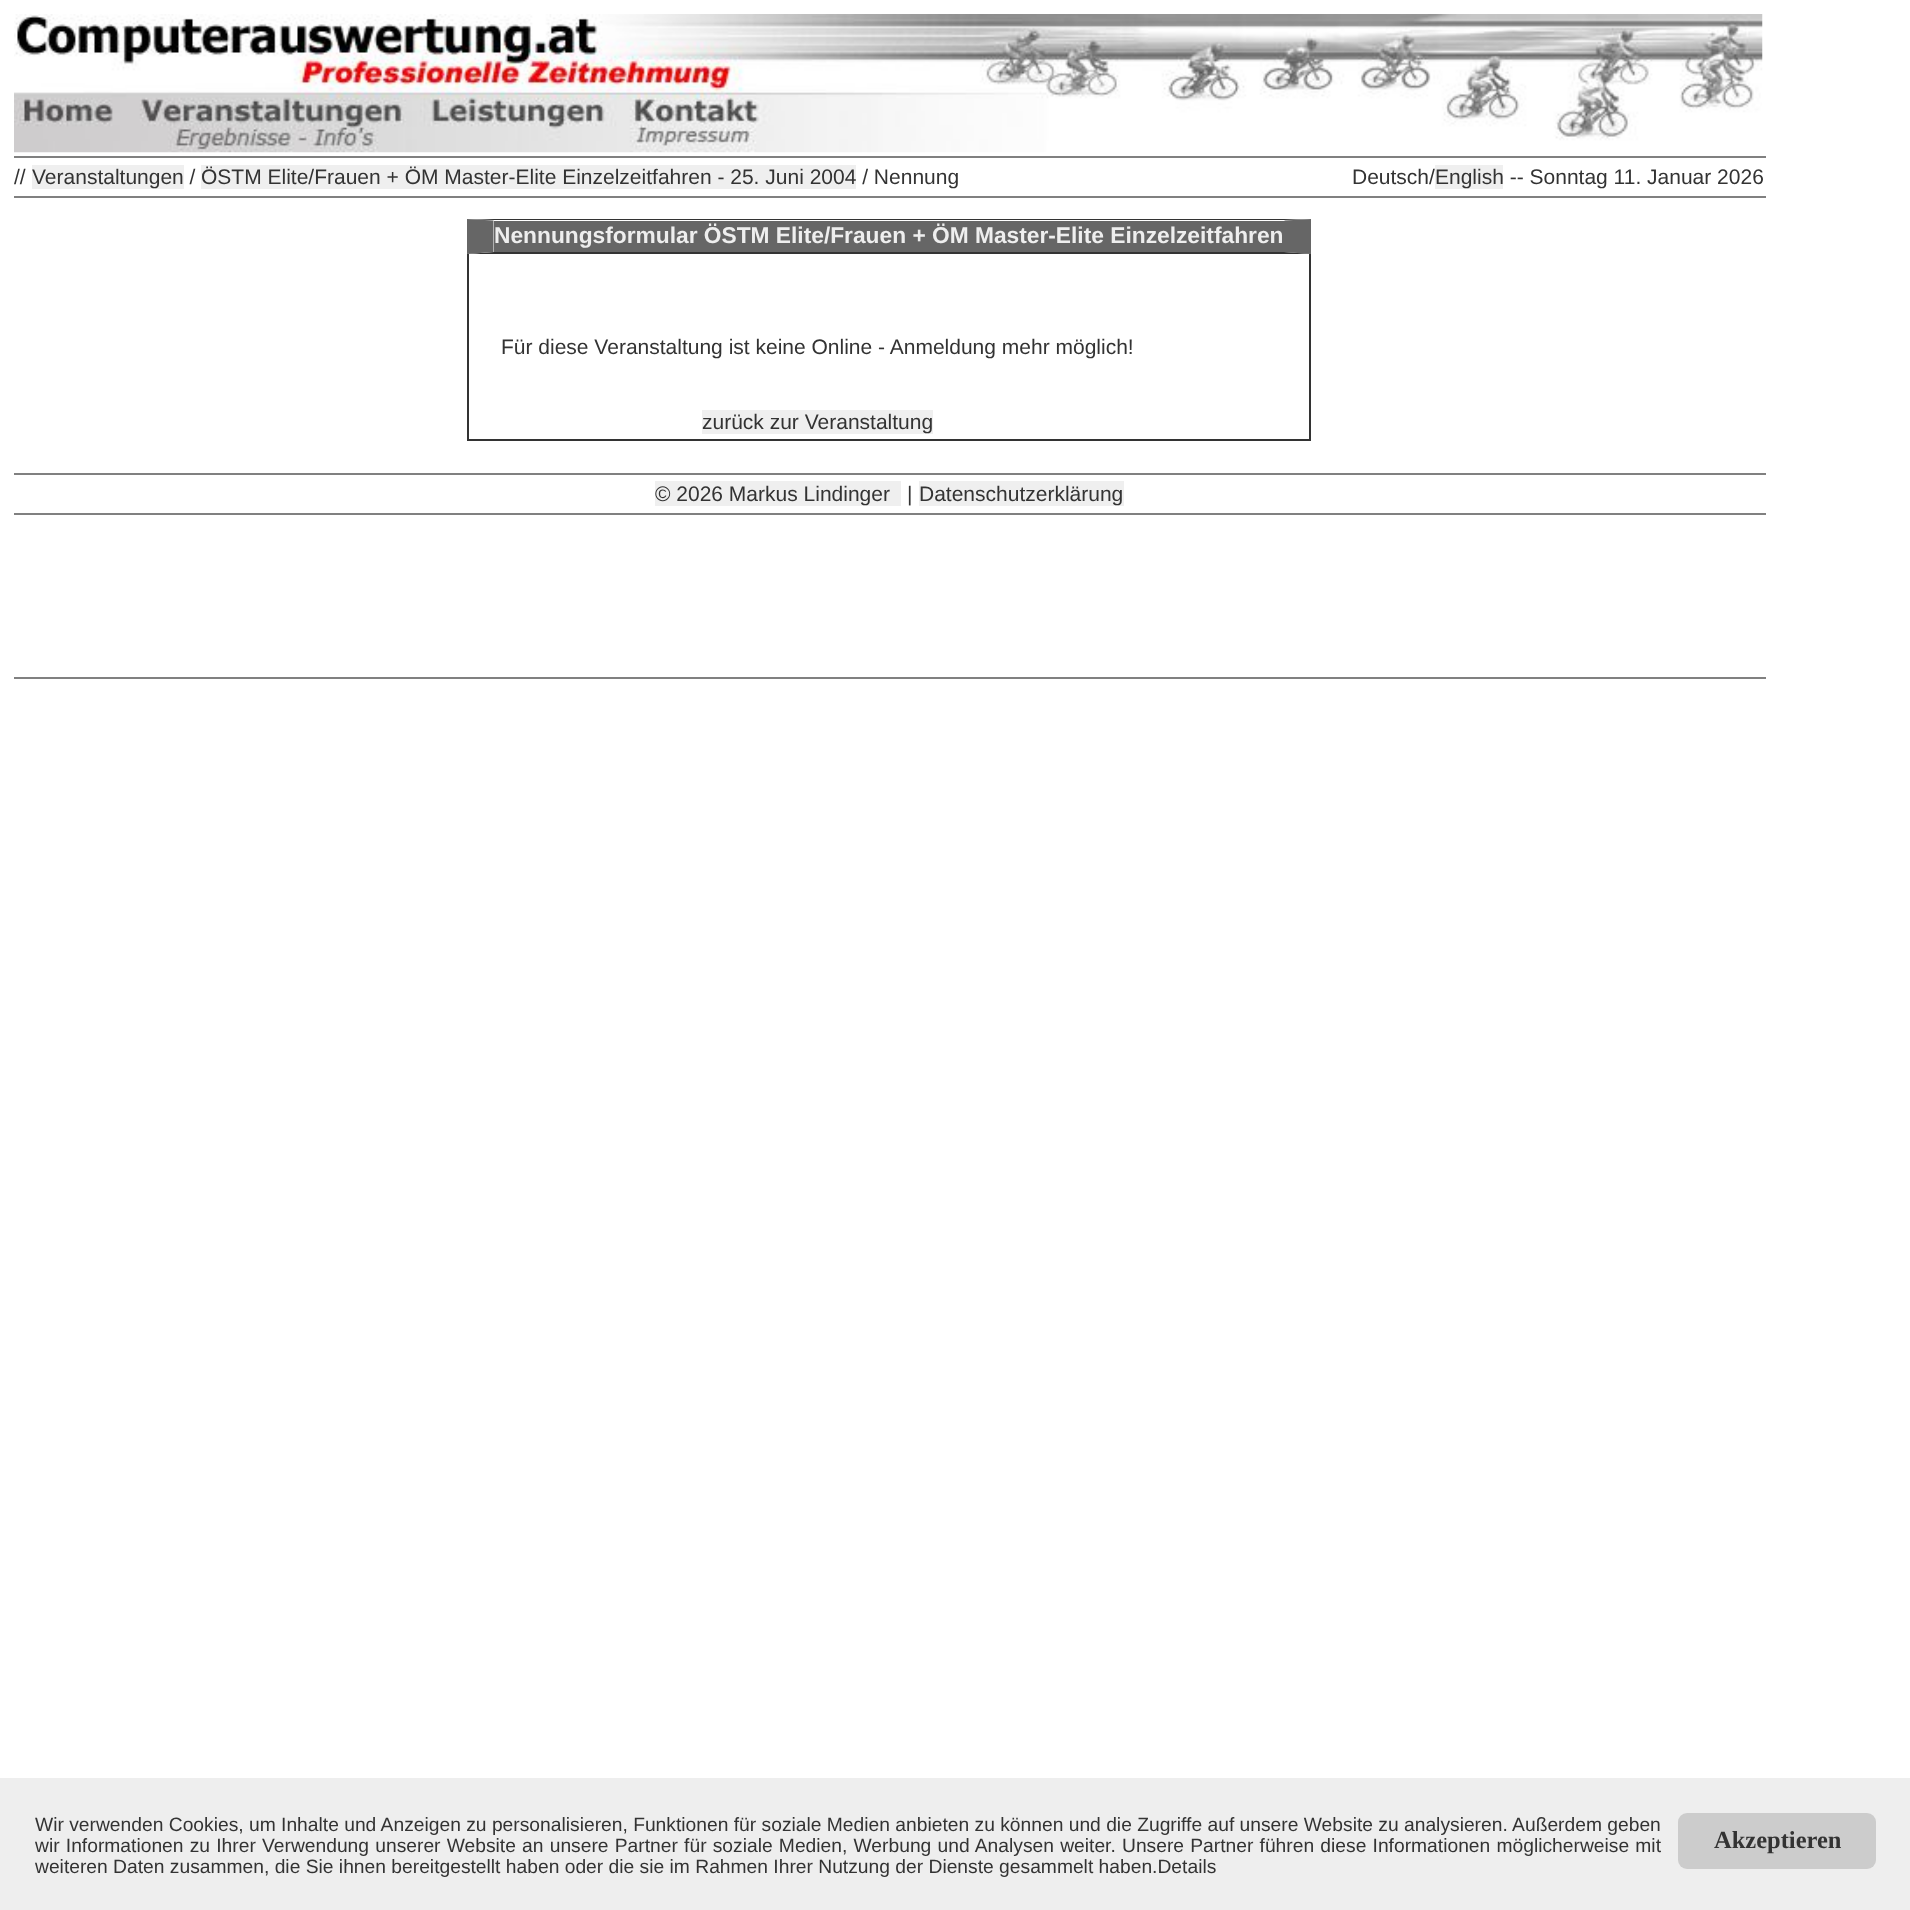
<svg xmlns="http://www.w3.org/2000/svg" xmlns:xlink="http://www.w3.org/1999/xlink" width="1910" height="1910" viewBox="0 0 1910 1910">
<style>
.cls-1{font:21px Liberation Sans;fill:#333333}
.cls-2{font:bold 22.75px Liberation Sans;fill:#eeeeee}
.cls-3{font:19.25px Liberation Sans;fill:#333333}
.cls-4{font:bold 24.5px Liberation Serif;fill:#333333}
</style>
<rect width="100%" height="100%" fill="#ffffff"/>
<image xlink:href="image0.png" x="14" y="14" width="1749" height="139"/>
<rect fill="#808080" x="14" y="156" width="1752" height="2"/>
<rect fill="#808080" x="14" y="196" width="1752" height="2"/>
<rect fill="#efefef" x="32" y="165" width="152" height="24"/>
<rect fill="#efefef" x="201" y="165" width="655" height="24"/>
<rect fill="#666666" x="494" y="221" width="791" height="31"/>
<path fill="#333333" d="M467 219H1311L1284 220H494Z"/>
<path fill="#666666" d="M1311 219V254L1284.5 252V220.5Z"/>
<path fill="#333333" d="M1311 254H467L494 252H1284Z"/>
<path fill="#666666" d="M467 254V219L493.5 220.5V252Z"/>
<rect fill="#333333" x="1309" y="254" width="2" height="187"/>
<rect fill="#333333" x="467" y="439" width="844" height="2"/>
<rect fill="#333333" x="467" y="254" width="2" height="187"/>
<rect fill="#efefef" x="702" y="410" width="231" height="24"/>
<rect fill="#808080" x="14" y="473" width="1752" height="2"/>
<rect fill="#efefef" x="655" y="481" width="246" height="25"/>
<rect fill="#efefef" x="919" y="481" width="205" height="25"/>
<rect fill="#808080" x="14" y="513" width="1752" height="2"/>
<rect fill="#808080" x="14" y="677" width="1752" height="2"/>
<rect fill="#eeeeee" x="0" y="1778" width="1910" height="132"/>
<rect fill="#cccccc" x="1678" y="1813" width="198" height="56" rx="9"/>
<text class="cls-1" x="14" y="184">//</text>
<text class="cls-1" x="32" y="184">Veranstaltungen /</text>
<text class="cls-1" x="201" y="184">ÖSTM Elite/Frauen + ÖM Master-Elite Einzelzeitfahren - 25. Juni 2004 / Nennung</text>
<text class="cls-1" x="1352" y="184">Deutsch/</text>
<rect fill="#efefef" x="1435" y="165" width="68" height="24"/>
<text class="cls-1" x="1435" y="184">English -- Sonntag 11. Januar 2026</text>
<text class="cls-2" x="494" y="243">Nennungsformular ÖSTM Elite/Frauen + ÖM Master-Elite Einzelzeitfahren</text>
<text class="cls-1" x="501" y="354">Für diese Veranstaltung ist keine Online - Anmeldung mehr möglich!</text>
<text class="cls-1" x="702" y="429">zurück zur Veranstaltung</text>
<text class="cls-1" x="655" y="501">© 2026 Markus Lindinger</text>
<text class="cls-1" x="907" y="501">|</text>
<text class="cls-1" x="919" y="501">Datenschutzerklärung</text>
<text class="cls-3"><tspan x="35" y="1831">Wir verwenden Cookies, um Inhalte und Anzeigen zu personalisieren, Funktionen für soziale Medien anbieten zu können und die Zugriffe auf unsere Website zu analysieren. Außerdem geben</tspan><tspan x="35" y="1852" word-spacing="0.85">wir Informationen zu Ihrer Verwendung unserer Website an unsere Partner für soziale Medien, Werbung und Analysen weiter. Unsere Partner führen diese Informationen möglicherweise mit</tspan><tspan x="35" y="1873">weiteren Daten zusammen, die Sie ihnen bereitgestellt haben oder die sie im Rahmen Ihrer Nutzung der Dienste gesammelt haben.Details</tspan></text>
<text class="cls-4" x="1714" y="1848">Akzeptieren</text>
</svg>
